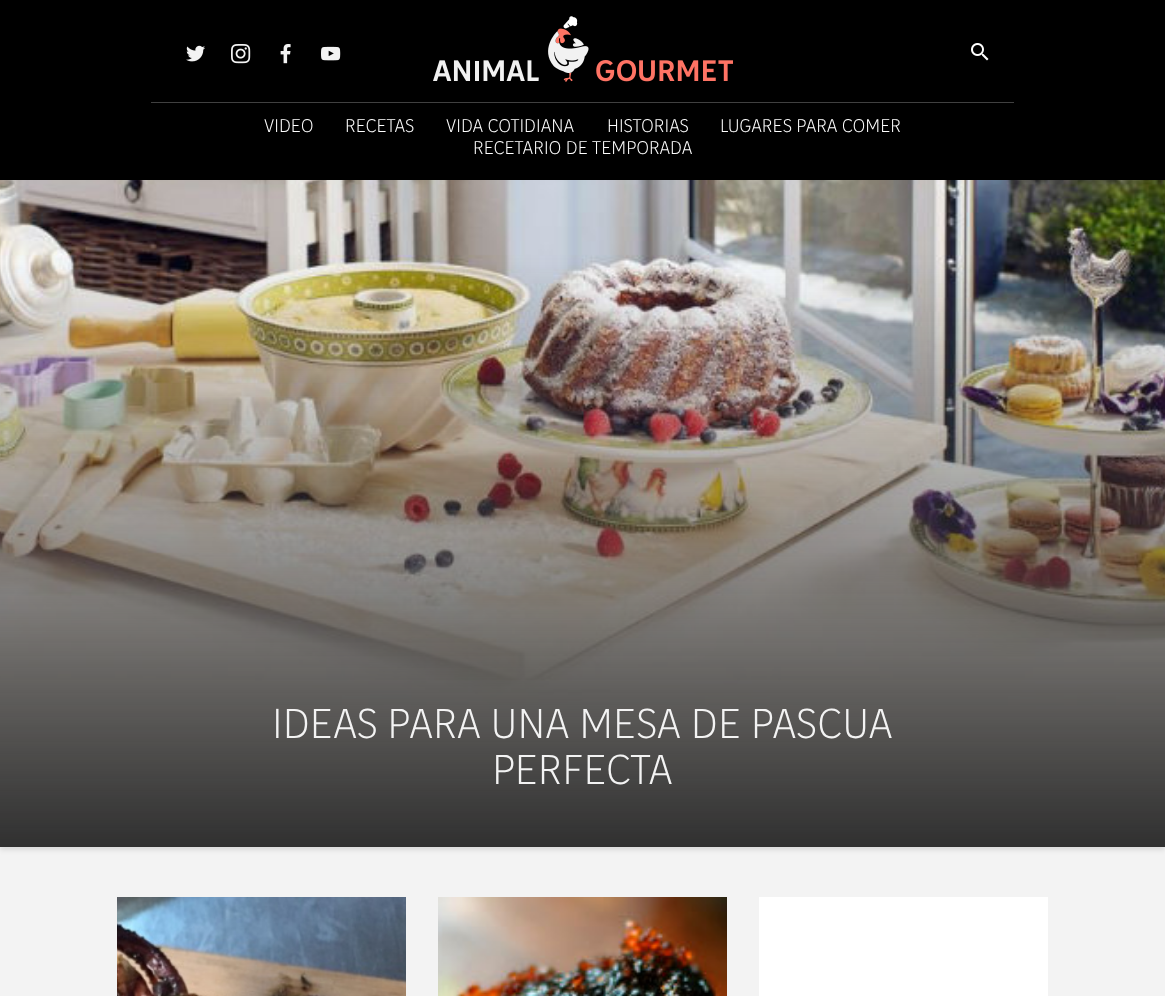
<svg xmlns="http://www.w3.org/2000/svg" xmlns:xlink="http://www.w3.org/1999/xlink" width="1165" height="996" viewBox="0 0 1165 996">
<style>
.cls-1{font:300 17.6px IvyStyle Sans;fill:#ffffff}
.cls-2{font:300 40px IvyStyle Sans;fill:#f3f3f3}
</style>
<rect width="100%" height="100%" fill="#f3f3f3"/>
<rect fill="#000000" fill-opacity="0.1" filter="blur(2.5px)" x="0" y="3" width="1165" height="847"/>
<rect fill="#000000" x="0" y="0" width="1165" height="180"/>
<image xlink:href="image0.png" x="186" y="45" width="19" height="17"/>
<image xlink:href="image1.png" x="231" y="44" width="20" height="20"/>
<image xlink:href="image2.png" x="280" y="44" width="11" height="20"/>
<image xlink:href="image3.png" x="321" y="46" width="20" height="15"/>
<image xlink:href="image4.png" x="433" y="16" width="300" height="66"/>
<image xlink:href="image5.png" x="971" y="43" width="18" height="18"/>
<rect fill="#404040" x="151" y="102" width="863" height="1"/>
<image xlink:href="image6.png" x="0" y="180" width="1165" height="667"/>
<image xlink:href="image7.png" x="117" y="897" width="289" height="99"/>
<image xlink:href="image8.png" x="438" y="897" width="289" height="99"/>
<rect fill="#ffffff" x="759" y="897" width="289" height="99"/>
<text class="cls-1" x="264" y="132">VIDEO</text>
<text class="cls-1" x="345" y="132">RECETAS</text>
<text class="cls-1" x="446" y="132">VIDA COTIDIANA</text>
<text class="cls-1" x="607" y="132">HISTORIAS</text>
<text class="cls-1" x="720" y="132">LUGARES PARA COMER</text>
<text class="cls-1" x="473" y="154">RECETARIO DE TEMPORADA</text>
<text class="cls-2" x="272" y="738">IDEAS PARA UNA MESA DE PASCUA</text>
<text class="cls-2" x="492" y="784">PERFECTA</text>
</svg>
